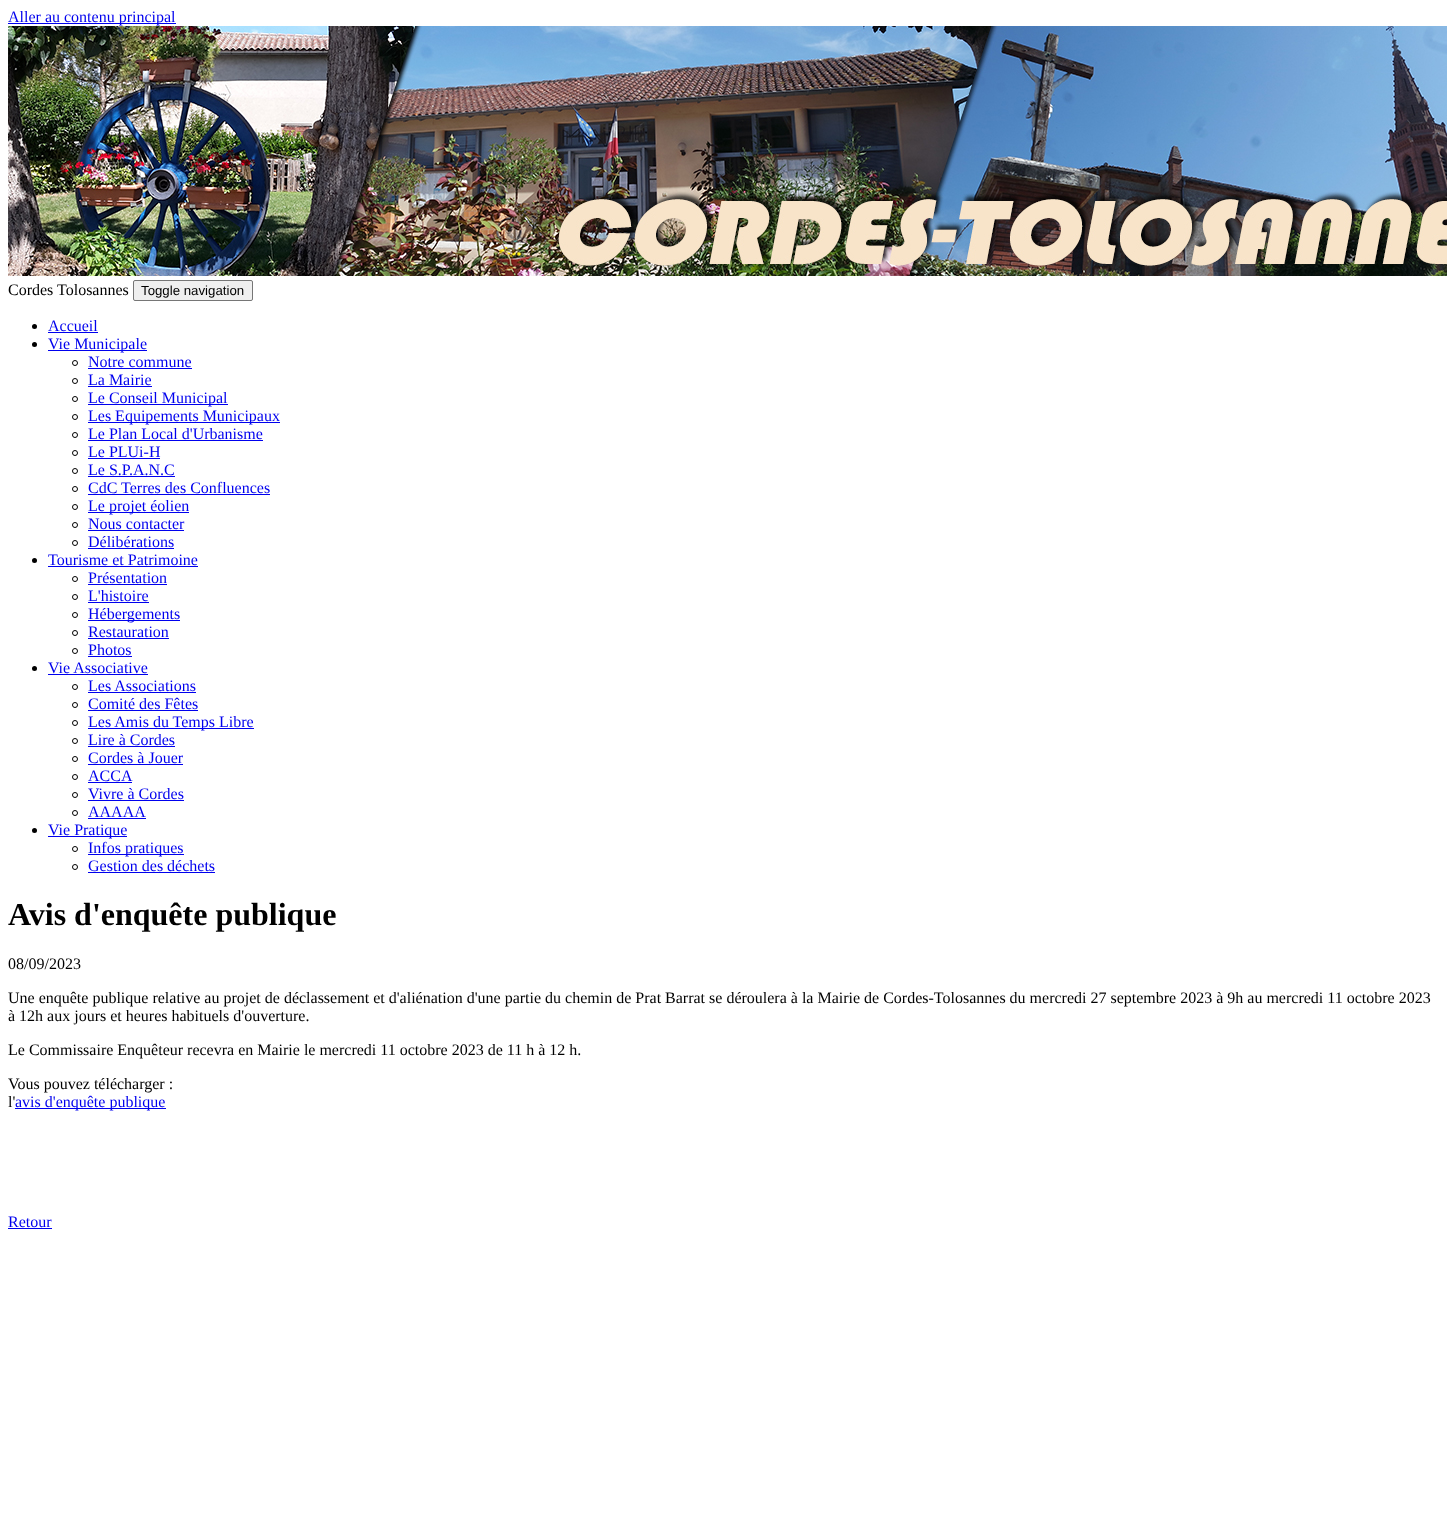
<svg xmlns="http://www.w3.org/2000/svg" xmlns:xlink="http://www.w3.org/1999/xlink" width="1447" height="1525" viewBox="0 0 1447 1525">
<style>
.cls-1{font:16px Liberation Serif;fill:#0000ee}
.cls-2{font:16px Liberation Serif;fill:#000000}
.cls-3{font:13.25px Liberation Sans;fill:#000000}
.cls-4{font:bold 32px Liberation Serif;fill:#000000}
</style>
<rect width="100%" height="100%" fill="#ffffff"/>
<rect fill="#0000ee" x="8" y="23" width="168" height="1"/>
<image xlink:href="image0.png" x="8" y="26" width="1439" height="250"/>
<rect fill="#efefef" stroke="#767676" x="133.5" y="280.5" width="119" height="20" rx="1.5"/>
<circle fill="#000000" cx="34.5" cy="326.5" r="2.5"/>
<rect fill="#0000ee" x="48" y="332" width="50" height="1"/>
<circle fill="#000000" cx="34.5" cy="344.5" r="2.5"/>
<rect fill="#0000ee" x="48" y="350" width="99" height="1"/>
<circle fill="none" stroke="#000000" cx="75" cy="363" r="2.5"/>
<rect fill="#0000ee" x="88" y="368" width="104" height="1"/>
<circle fill="none" stroke="#000000" cx="75" cy="381" r="2.5"/>
<rect fill="#0000ee" x="88" y="386" width="64" height="1"/>
<circle fill="none" stroke="#000000" cx="75" cy="399" r="2.5"/>
<rect fill="#0000ee" x="88" y="404" width="140" height="1"/>
<circle fill="none" stroke="#000000" cx="75" cy="417" r="2.5"/>
<rect fill="#0000ee" x="88" y="422" width="192" height="1"/>
<circle fill="none" stroke="#000000" cx="75" cy="435" r="2.5"/>
<rect fill="#0000ee" x="88" y="440" width="175" height="1"/>
<circle fill="none" stroke="#000000" cx="75" cy="453" r="2.5"/>
<rect fill="#0000ee" x="88" y="458" width="72" height="1"/>
<circle fill="none" stroke="#000000" cx="75" cy="471" r="2.5"/>
<rect fill="#0000ee" x="88" y="476" width="87" height="1"/>
<circle fill="none" stroke="#000000" cx="75" cy="489" r="2.5"/>
<rect fill="#0000ee" x="88" y="494" width="182" height="1"/>
<circle fill="none" stroke="#000000" cx="75" cy="507" r="2.5"/>
<rect fill="#0000ee" x="88" y="512" width="101" height="1"/>
<circle fill="none" stroke="#000000" cx="75" cy="525" r="2.5"/>
<rect fill="#0000ee" x="88" y="530" width="96" height="1"/>
<circle fill="none" stroke="#000000" cx="75" cy="543" r="2.5"/>
<rect fill="#0000ee" x="88" y="548" width="86" height="1"/>
<circle fill="#000000" cx="34.5" cy="560.5" r="2.5"/>
<rect fill="#0000ee" x="48" y="566" width="150" height="1"/>
<circle fill="none" stroke="#000000" cx="75" cy="579" r="2.5"/>
<rect fill="#0000ee" x="88" y="584" width="79" height="1"/>
<circle fill="none" stroke="#000000" cx="75" cy="597" r="2.5"/>
<rect fill="#0000ee" x="88" y="602" width="61" height="1"/>
<circle fill="none" stroke="#000000" cx="75" cy="615" r="2.5"/>
<rect fill="#0000ee" x="88" y="620" width="92" height="1"/>
<circle fill="none" stroke="#000000" cx="75" cy="633" r="2.5"/>
<rect fill="#0000ee" x="88" y="638" width="81" height="1"/>
<circle fill="none" stroke="#000000" cx="75" cy="651" r="2.5"/>
<rect fill="#0000ee" x="88" y="656" width="44" height="1"/>
<circle fill="#000000" cx="34.5" cy="668.5" r="2.5"/>
<rect fill="#0000ee" x="48" y="674" width="100" height="1"/>
<circle fill="none" stroke="#000000" cx="75" cy="687" r="2.5"/>
<rect fill="#0000ee" x="88" y="692" width="108" height="1"/>
<circle fill="none" stroke="#000000" cx="75" cy="705" r="2.5"/>
<rect fill="#0000ee" x="88" y="710" width="110" height="1"/>
<circle fill="none" stroke="#000000" cx="75" cy="723" r="2.5"/>
<rect fill="#0000ee" x="88" y="728" width="166" height="1"/>
<circle fill="none" stroke="#000000" cx="75" cy="741" r="2.5"/>
<rect fill="#0000ee" x="88" y="746" width="87" height="1"/>
<circle fill="none" stroke="#000000" cx="75" cy="759" r="2.5"/>
<rect fill="#0000ee" x="88" y="764" width="95" height="1"/>
<circle fill="none" stroke="#000000" cx="75" cy="777" r="2.5"/>
<rect fill="#0000ee" x="88" y="782" width="44" height="1"/>
<circle fill="none" stroke="#000000" cx="75" cy="795" r="2.5"/>
<rect fill="#0000ee" x="88" y="800" width="96" height="1"/>
<circle fill="none" stroke="#000000" cx="75" cy="813" r="2.5"/>
<rect fill="#0000ee" x="88" y="818" width="58" height="1"/>
<circle fill="#000000" cx="34.5" cy="830.5" r="2.5"/>
<rect fill="#0000ee" x="48" y="836" width="79" height="1"/>
<circle fill="none" stroke="#000000" cx="75" cy="849" r="2.5"/>
<rect fill="#0000ee" x="88" y="854" width="96" height="1"/>
<circle fill="none" stroke="#000000" cx="75" cy="867" r="2.5"/>
<rect fill="#0000ee" x="88" y="872" width="127" height="1"/>
<rect fill="#0000ee" x="15" y="1108" width="151" height="1"/>
<rect fill="#0000ee" x="8" y="1228" width="44" height="1"/>
<text class="cls-1" x="8" y="22">Aller au contenu principal</text>
<text class="cls-2" x="8" y="295">Cordes Tolosannes</text>
<text class="cls-3" x="141" y="295">Toggle navigation</text>
<text class="cls-1"><tspan x="48" y="331">Accueil</tspan><tspan x="48" y="349">Vie Municipale</tspan></text>
<text class="cls-1"><tspan x="88" y="367">Notre commune</tspan><tspan x="88" y="385">La Mairie</tspan><tspan x="88" y="403">Le Conseil Municipal</tspan><tspan x="88" y="421">Les Equipements Municipaux</tspan><tspan x="88" y="439">Le Plan Local d'Urbanisme</tspan><tspan x="88" y="457">Le PLUi-H</tspan><tspan x="88" y="475">Le S.P.A.N.C</tspan><tspan x="88" y="493">CdC Terres des Confluences</tspan><tspan x="88" y="511">Le projet éolien</tspan><tspan x="88" y="529">Nous contacter</tspan><tspan x="88" y="547">Délibérations</tspan></text>
<text class="cls-1" x="48" y="565">Tourisme et Patrimoine</text>
<text class="cls-1"><tspan x="88" y="583">Présentation</tspan><tspan x="88" y="601">L'histoire</tspan><tspan x="88" y="619">Hébergements</tspan><tspan x="88" y="637">Restauration</tspan><tspan x="88" y="655">Photos</tspan></text>
<text class="cls-1" x="48" y="673">Vie Associative</text>
<text class="cls-1"><tspan x="88" y="691">Les Associations</tspan><tspan x="88" y="709">Comité des Fêtes</tspan><tspan x="88" y="727">Les Amis du Temps Libre</tspan><tspan x="88" y="745">Lire à Cordes</tspan><tspan x="88" y="763">Cordes à Jouer</tspan><tspan x="88" y="781">ACCA</tspan><tspan x="88" y="799">Vivre à Cordes</tspan><tspan x="88" y="817">AAAAA</tspan></text>
<text class="cls-1" x="48" y="835">Vie Pratique</text>
<text class="cls-1"><tspan x="88" y="853">Infos pratiques</tspan><tspan x="88" y="871">Gestion des déchets</tspan></text>
<text class="cls-4" x="8" y="925">Avis d'enquête publique</text>
<text class="cls-2" x="8" y="969">08/09/2023</text>
<text class="cls-2"><tspan x="8" y="1003">Une enquête publique relative au projet de déclassement et d'aliénation d'une partie du chemin de Prat Barrat se déroulera à la Mairie de Cordes-Tolosannes du mercredi 27 septembre 2023 à 9h au mercredi 11 octobre 2023</tspan><tspan x="8" y="1021">à 12h aux jours et heures habituels d'ouverture.</tspan></text>
<text class="cls-2" x="8" y="1055">Le Commissaire Enquêteur recevra en Mairie le mercredi 11 octobre 2023 de 11 h à 12 h.</text>
<text class="cls-2"><tspan x="8" y="1089">Vous pouvez télécharger :</tspan><tspan x="8" y="1107">l'</tspan></text>
<text class="cls-1" x="15" y="1107">avis d'enquête publique</text>
<text class="cls-1" x="8" y="1227">Retour</text>
</svg>
